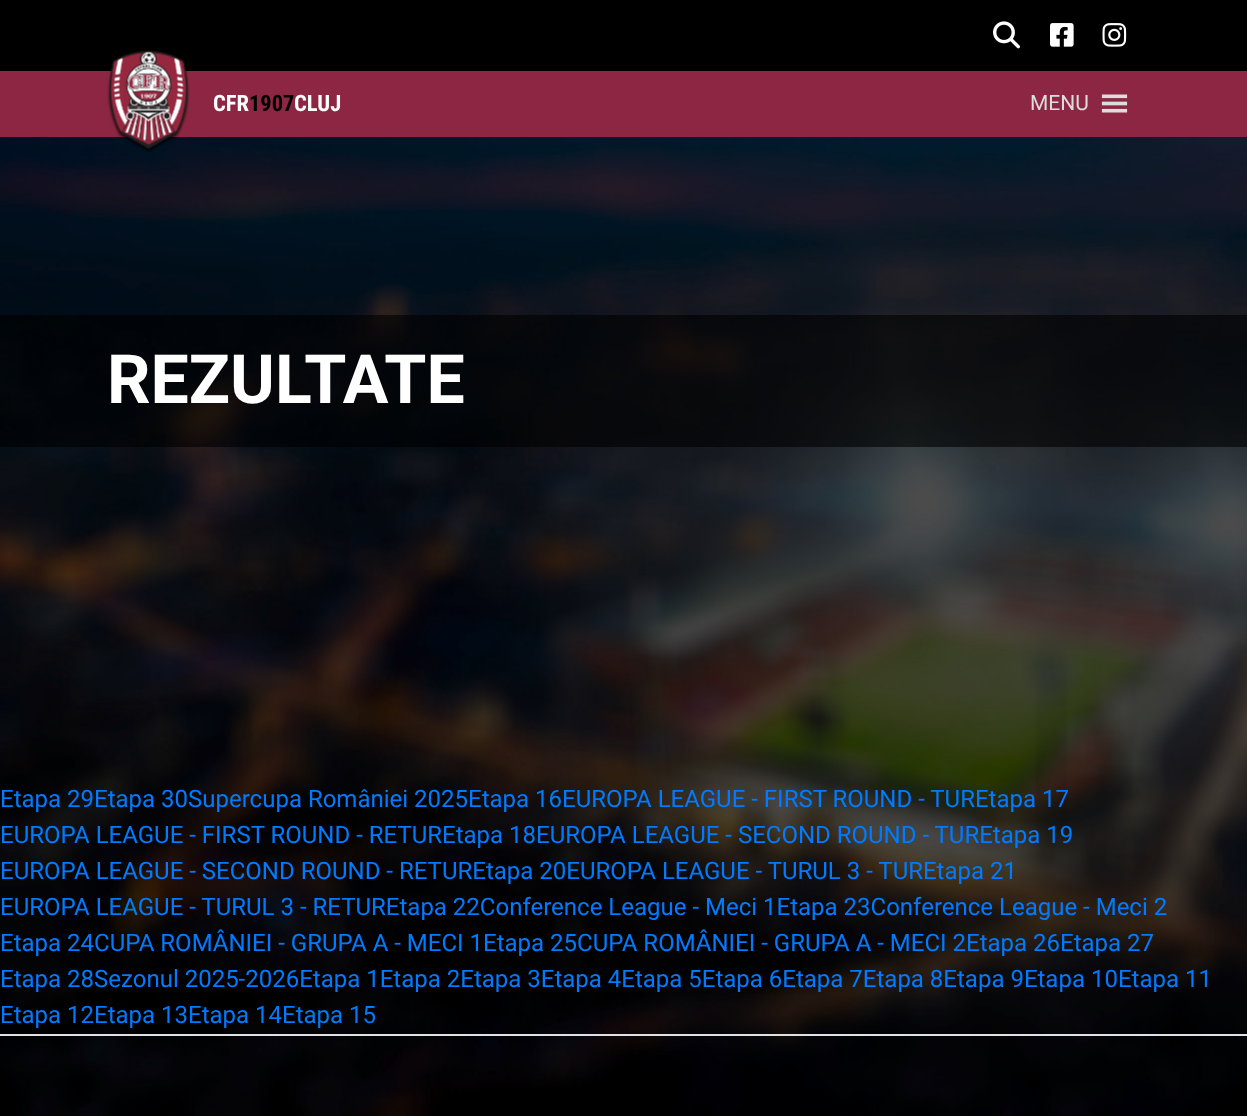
<svg xmlns="http://www.w3.org/2000/svg" xmlns:xlink="http://www.w3.org/1999/xlink" width="1247" height="1116" viewBox="0 0 1247 1116">
<style>
.cls-1{font:bold 22.5px Roboto Condensed;fill:#ffffff}
.cls-2{font:bold 22.5px Roboto Condensed;fill:#000000}
.cls-3{font:21px Roboto;fill:#dddddd}
.cls-4{font:bold 68px Roboto;fill:#ffffff}
.cls-5{font:24px Roboto;fill:#007bff}
</style>
<rect width="100%" height="100%" fill="#ffffff"/>
<image xlink:href="image0.png" x="0" y="137" width="1247" height="979"/>
<rect fill="#000000" x="0" y="0" width="1247" height="71"/>
<image xlink:href="image1.png" x="993" y="21" width="27" height="28"/>
<image xlink:href="image2.png" x="1050" y="23" width="24" height="24"/>
<image xlink:href="image3.png" x="1102" y="23" width="25" height="24"/>
<rect fill="#8d2642" x="0" y="71" width="1247" height="66"/>
<image xlink:href="image4.png" x="107" y="50" width="83" height="102"/>
<image xlink:href="image5.png" x="1101" y="94" width="27" height="19"/>
<rect fill="#000000" fill-opacity="0.6" x="0" y="315" width="1247" height="132"/>
<rect fill="#dee2e6" x="0" y="1034" width="1247" height="2"/>
<text class="cls-1" x="213" y="111">CFR</text>
<text class="cls-2" x="249" y="111">1907</text>
<text class="cls-1" x="294" y="111">CLUJ</text>
<text class="cls-3" x="1030" y="110">MENU</text>
<text class="cls-4" x="107" y="403">REZULTATE</text>
<text class="cls-5"><tspan x="0" y="807">Etapa 29Etapa 30Supercupa României 2025Etapa 16EUROPA LEAGUE - FIRST ROUND - TUREtapa 17</tspan><tspan x="0" y="843">EUROPA LEAGUE - FIRST ROUND - RETUREtapa 18EUROPA LEAGUE - SECOND ROUND - TUREtapa 19</tspan><tspan x="0" y="879">EUROPA LEAGUE - SECOND ROUND - RETUREtapa 20EUROPA LEAGUE - TURUL 3 - TUREtapa 21</tspan><tspan x="0" y="915">EUROPA LEAGUE - TURUL 3 - RETUREtapa 22Conference League - Meci 1Etapa 23Conference League - Meci 2</tspan><tspan x="0" y="951">Etapa 24CUPA ROMÂNIEI - GRUPA A - MECI 1Etapa 25CUPA ROMÂNIEI - GRUPA A - MECI 2Etapa 26Etapa 27</tspan><tspan x="0" y="987">Etapa 28Sezonul 2025-2026Etapa 1Etapa 2Etapa 3Etapa 4Etapa 5Etapa 6Etapa 7Etapa 8Etapa 9Etapa 10Etapa 11</tspan><tspan x="0" y="1023">Etapa 12Etapa 13Etapa 14Etapa 15</tspan></text>
</svg>
